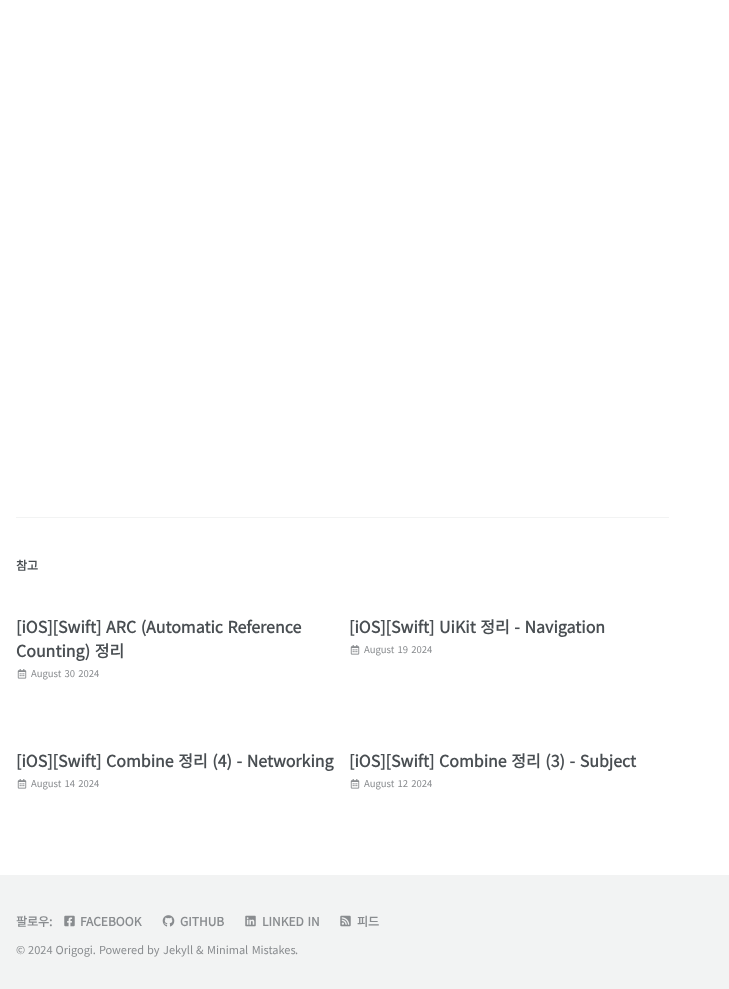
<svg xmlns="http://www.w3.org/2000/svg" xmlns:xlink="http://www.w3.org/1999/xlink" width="729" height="989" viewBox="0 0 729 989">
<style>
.cls-1{font:bold 12px Noto Sans KR;fill:#494e52}
.cls-2{font:bold 16px Noto Sans KR;fill:#494e52}
.cls-3{font:100 9.5px Noto Sans KR;fill:#898c8f}
.cls-4{font:bold 12px Noto Sans KR;fill:#898c8f}
.cls-5{font:100 11px Noto Sans KR;fill:#898c8f}
</style>
<rect width="100%" height="100%" fill="#ffffff"/>
<rect fill="#f2f3f3" x="16" y="517" width="653" height="1"/>
<image xlink:href="image0.png" x="17" y="669" width="10" height="10"/>
<image xlink:href="image0.png" x="350" y="645" width="10" height="10"/>
<image xlink:href="image0.png" x="17" y="779" width="10" height="10"/>
<image xlink:href="image0.png" x="350" y="779" width="10" height="10"/>
<rect fill="#f2f3f3" x="0" y="875" width="729" height="114"/>
<image xlink:href="image1.png" x="64" y="915" width="11" height="12"/>
<image xlink:href="image2.png" x="162" y="915" width="13" height="12"/>
<image xlink:href="image3.png" x="245" y="915" width="11" height="12"/>
<image xlink:href="image4.png" x="340" y="915" width="11" height="12"/>
<text class="cls-1" x="16" y="570">참고</text>
<text class="cls-2"><tspan x="16" y="633" word-spacing="1">[iOS][Swift] ARC (Automatic Reference</tspan><tspan x="16" y="657" word-spacing="1">Counting) 정리</tspan></text>
<text class="cls-3" x="31" y="677" word-spacing="1">August 30 2024</text>
<text class="cls-2" x="349" y="633" word-spacing="1">[iOS][Swift] UiKit 정리 - Navigation</text>
<text class="cls-3" x="364" y="653" word-spacing="1">August 19 2024</text>
<text class="cls-2" x="16" y="767" word-spacing="1">[iOS][Swift] Combine 정리 (4) - Networking</text>
<text class="cls-3" x="31" y="787" word-spacing="1">August 14 2024</text>
<text class="cls-2" x="349" y="767" word-spacing="1">[iOS][Swift] Combine 정리 (3) - Subject</text>
<text class="cls-3" x="364" y="787" word-spacing="1">August 12 2024</text>
<text class="cls-4" x="16" y="926">팔로우:</text>
<text class="cls-4" x="80" y="926">FACEBOOK</text>
<text class="cls-4" x="180" y="926">GITHUB</text>
<text class="cls-4" x="262" y="926" word-spacing="1">LINKED IN</text>
<text class="cls-4" x="357" y="926">피드</text>
<text class="cls-5" x="16" y="954" word-spacing="0.5">© 2024 Origogi. Powered by</text>
<text class="cls-5" x="163" y="954">Jekyll</text>
<text class="cls-5" x="196" y="954">&amp;</text>
<text class="cls-5" x="207" y="954" word-spacing="1">Minimal Mistakes</text>
<text class="cls-5" x="295" y="954">.</text>
</svg>
